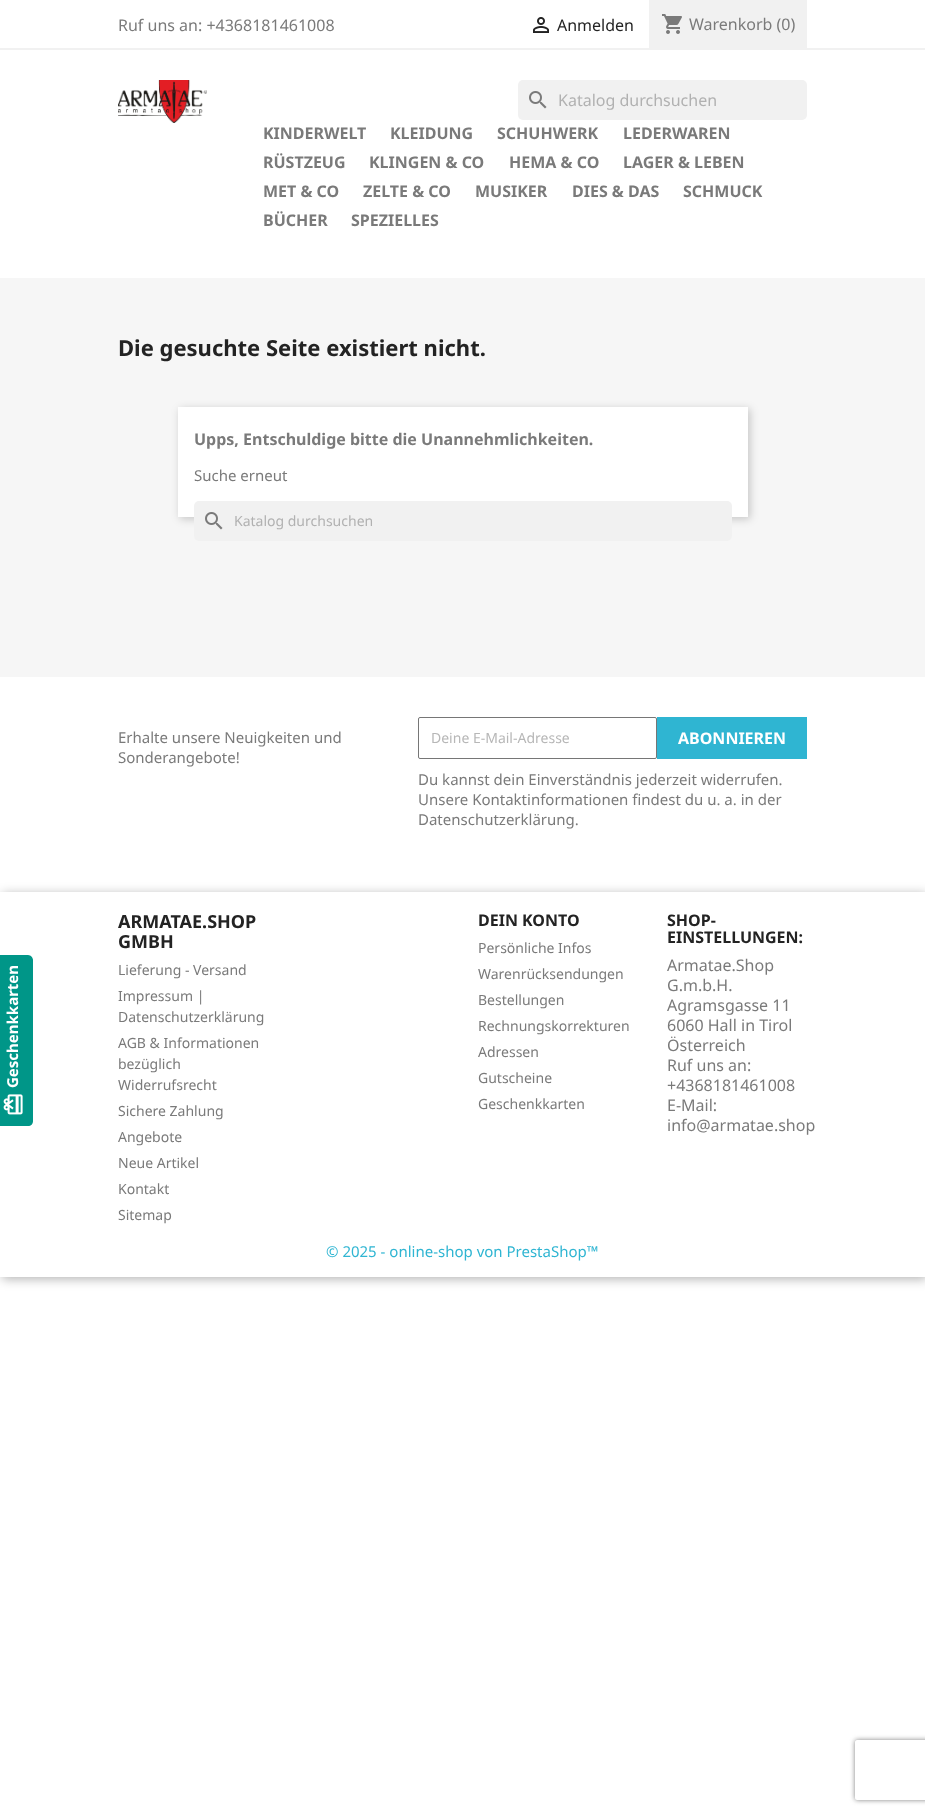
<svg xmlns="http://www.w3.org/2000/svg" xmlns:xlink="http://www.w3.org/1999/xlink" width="925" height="1814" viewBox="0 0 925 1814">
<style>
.cls-1{font:16px Noto Sans;fill:#7a7a7a}
.cls-2{font:16px Noto Sans;fill:#232323}
.cls-3{font:16px Noto Sans;fill:#b1b1b1}
.cls-4{font:bold 16px Noto Sans;fill:#7a7a7a}
.cls-5{font:bold 22px Noto Sans;fill:#232323}
.cls-6{font:15px Noto Sans;fill:#7a7a7a}
.cls-7{font:14px Noto Sans;fill:#b1b1b1}
.cls-8{font:14px Noto Sans;fill:#b7b7b7}
.cls-9{font:bold 16px Noto Sans;fill:#ffffff}
.cls-10{font:bold 15px Noto Sans;fill:#ffffff}
.cls-11{font:bold 18px Noto Sans;fill:#232323}
.cls-12{font:14px Noto Sans;fill:#7a7a7a}
.cls-13{font:bold 16px Noto Sans;fill:#232323}
.cls-14{font:15px Noto Sans;fill:#2fb5d2}
</style>
<defs>
<clipPath id="clip1"><path d="M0 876H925V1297H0ZM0 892H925V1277H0Z" clip-rule="evenodd"/></clipPath>
<clipPath id="clip2"><path d="M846 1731H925V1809H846ZM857 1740H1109C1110 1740 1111 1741 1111 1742V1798C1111 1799 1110 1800 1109 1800H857C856 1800 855 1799 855 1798V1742C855 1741 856 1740 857 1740Z" clip-rule="evenodd"/></clipPath>
</defs>
<rect width="100%" height="100%" fill="#ffffff"/>
<rect fill="#f1f1f1" x="0" y="48" width="925" height="2"/>
<image xlink:href="image0.png" x="533" y="17" width="16" height="16"/>
<rect fill="#f1f1f1" x="649" y="0" width="158" height="48"/>
<image xlink:href="image1.png" x="662" y="14" width="20" height="20"/>
<image xlink:href="image2.png" x="118" y="80" width="89" height="43"/>
<rect fill="#f1f1f1" x="518" y="80" width="289" height="40" rx="5"/>
<image xlink:href="image3.png" x="529" y="91" width="18" height="18"/>
<rect fill="#f6f6f6" x="0" y="278" width="925" height="399"/>
<rect fill="#000000" fill-opacity="0.2" filter="blur(4px)" x="180" y="409" width="570" height="110"/>
<rect fill="#ffffff" x="178" y="407" width="570" height="110"/>
<rect fill="#f1f1f1" x="194" y="501" width="538" height="40" rx="5"/>
<image xlink:href="image3.png" x="205" y="512" width="18" height="18"/>
<rect fill="none" stroke="#767676" x="418.5" y="717.5" width="238" height="41" rx="1.5"/>
<rect fill="#2fb5d2" x="657" y="717" width="150" height="42"/>
<g clip-path="url(#clip1)">
<rect fill="#000000" fill-opacity="0.3" filter="blur(5.5px)" x="2" y="894" width="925" height="385"/>
</g>
<path fill="#009688" d="M-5 1126V955H28C31 955 33 958 33 960V1121C33 1124 31 1126 28 1126Z"/>
<image xlink:href="image4.png" x="3" y="1094" width="20" height="21"/>
<g clip-path="url(#clip2)">
<rect fill="#808080" filter="blur(2.5px)" x="855" y="1740" width="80" height="60" rx="2"/>
</g>
<text class="cls-1" x="118" y="31">Ruf uns an: +4368181461008</text>
<text class="cls-2" x="557" y="31">Anmelden</text>
<text class="cls-1" x="689" y="30">Warenkorb (0)</text>
<text class="cls-3" x="558" y="106">Katalog durchsuchen</text>
<text class="cls-4" x="263" y="139">KINDERWELT</text>
<text class="cls-4" x="390" y="139">KLEIDUNG</text>
<text class="cls-4" x="497" y="139">SCHUHWERK</text>
<text class="cls-4" x="623" y="139">LEDERWAREN</text>
<text class="cls-4" x="263" y="168">RÜSTZEUG</text>
<text class="cls-4" x="369" y="168">KLINGEN &amp; CO</text>
<text class="cls-4" x="509" y="168">HEMA &amp; CO</text>
<text class="cls-4" x="623" y="168">LAGER &amp; LEBEN</text>
<text class="cls-4" x="263" y="197">MET &amp; CO</text>
<text class="cls-4" x="363" y="197">ZELTE &amp; CO</text>
<text class="cls-4" x="475" y="197">MUSIKER</text>
<text class="cls-4" x="572" y="197">DIES &amp; DAS</text>
<text class="cls-4" x="683" y="197">SCHMUCK</text>
<text class="cls-4" x="263" y="226">BÜCHER</text>
<text class="cls-4" x="351" y="226">SPEZIELLES</text>
<text class="cls-5" x="118" y="356">Die gesuchte Seite existiert nicht.</text>
<text class="cls-4" x="194" y="445">Upps, Entschuldige bitte die Unannehmlichkeiten.</text>
<text class="cls-6" x="194" y="481">Suche erneut</text>
<text class="cls-7" x="234" y="526">Katalog durchsuchen</text>
<text class="cls-6"><tspan x="118" y="743">Erhalte unsere Neuigkeiten und</tspan><tspan x="118" y="763">Sonderangebote!</tspan></text>
<text class="cls-8" x="431" y="743">Deine E-Mail-Adresse</text>
<text class="cls-9" x="678" y="744">ABONNIEREN</text>
<text class="cls-6"><tspan x="418" y="785">Du kannst dein Einverständnis jederzeit widerrufen.</tspan><tspan x="418" y="805">Unsere Kontaktinformationen findest du u. a. in der</tspan><tspan x="418" y="825">Datenschutzerklärung.</tspan></text>
<text class="cls-10" x="18" y="1088" transform="rotate(-90 18 1088)">Geschenkkarten</text>
<text class="cls-11"><tspan x="118" y="928">ARMATAE.SHOP</tspan><tspan x="118" y="948">GMBH</tspan></text>
<text class="cls-12"><tspan x="118" y="975">Lieferung - Versand</tspan><tspan x="118" y="1001">Impressum |</tspan><tspan x="118" y="1022">Datenschutzerklärung</tspan><tspan x="118" y="1048">AGB &amp; Informationen</tspan><tspan x="118" y="1069">bezüglich</tspan><tspan x="118" y="1090">Widerrufsrecht</tspan><tspan x="118" y="1116">Sichere Zahlung</tspan><tspan x="118" y="1142">Angebote</tspan><tspan x="118" y="1168">Neue Artikel</tspan><tspan x="118" y="1194">Kontakt</tspan><tspan x="118" y="1220">Sitemap</tspan></text>
<text class="cls-13" x="478" y="926">DEIN KONTO</text>
<text class="cls-12"><tspan x="478" y="953">Persönliche Infos</tspan><tspan x="478" y="979">Warenrücksendungen</tspan><tspan x="478" y="1005">Bestellungen</tspan><tspan x="478" y="1031">Rechnungskorrekturen</tspan><tspan x="478" y="1057">Adressen</tspan><tspan x="478" y="1083">Gutscheine</tspan><tspan x="478" y="1109">Geschenkkarten</tspan></text>
<text class="cls-13"><tspan x="667" y="926">SHOP-</tspan><tspan x="667" y="943">EINSTELLUNGEN:</tspan></text>
<text class="cls-1"><tspan x="667" y="971">Armatae.Shop</tspan><tspan x="667" y="991">G.m.b.H.</tspan><tspan x="667" y="1011">Agramsgasse 11</tspan><tspan x="667" y="1031">6060 Hall in Tirol</tspan><tspan x="667" y="1051">Österreich</tspan><tspan x="667" y="1071">Ruf uns an:</tspan><tspan x="667" y="1091">+4368181461008</tspan><tspan x="667" y="1111">E-Mail:</tspan><tspan x="667" y="1131">info@armatae.shop</tspan></text>
<text class="cls-14" x="326" y="1257">© 2025 - online-shop von PrestaShop™</text>
</svg>
